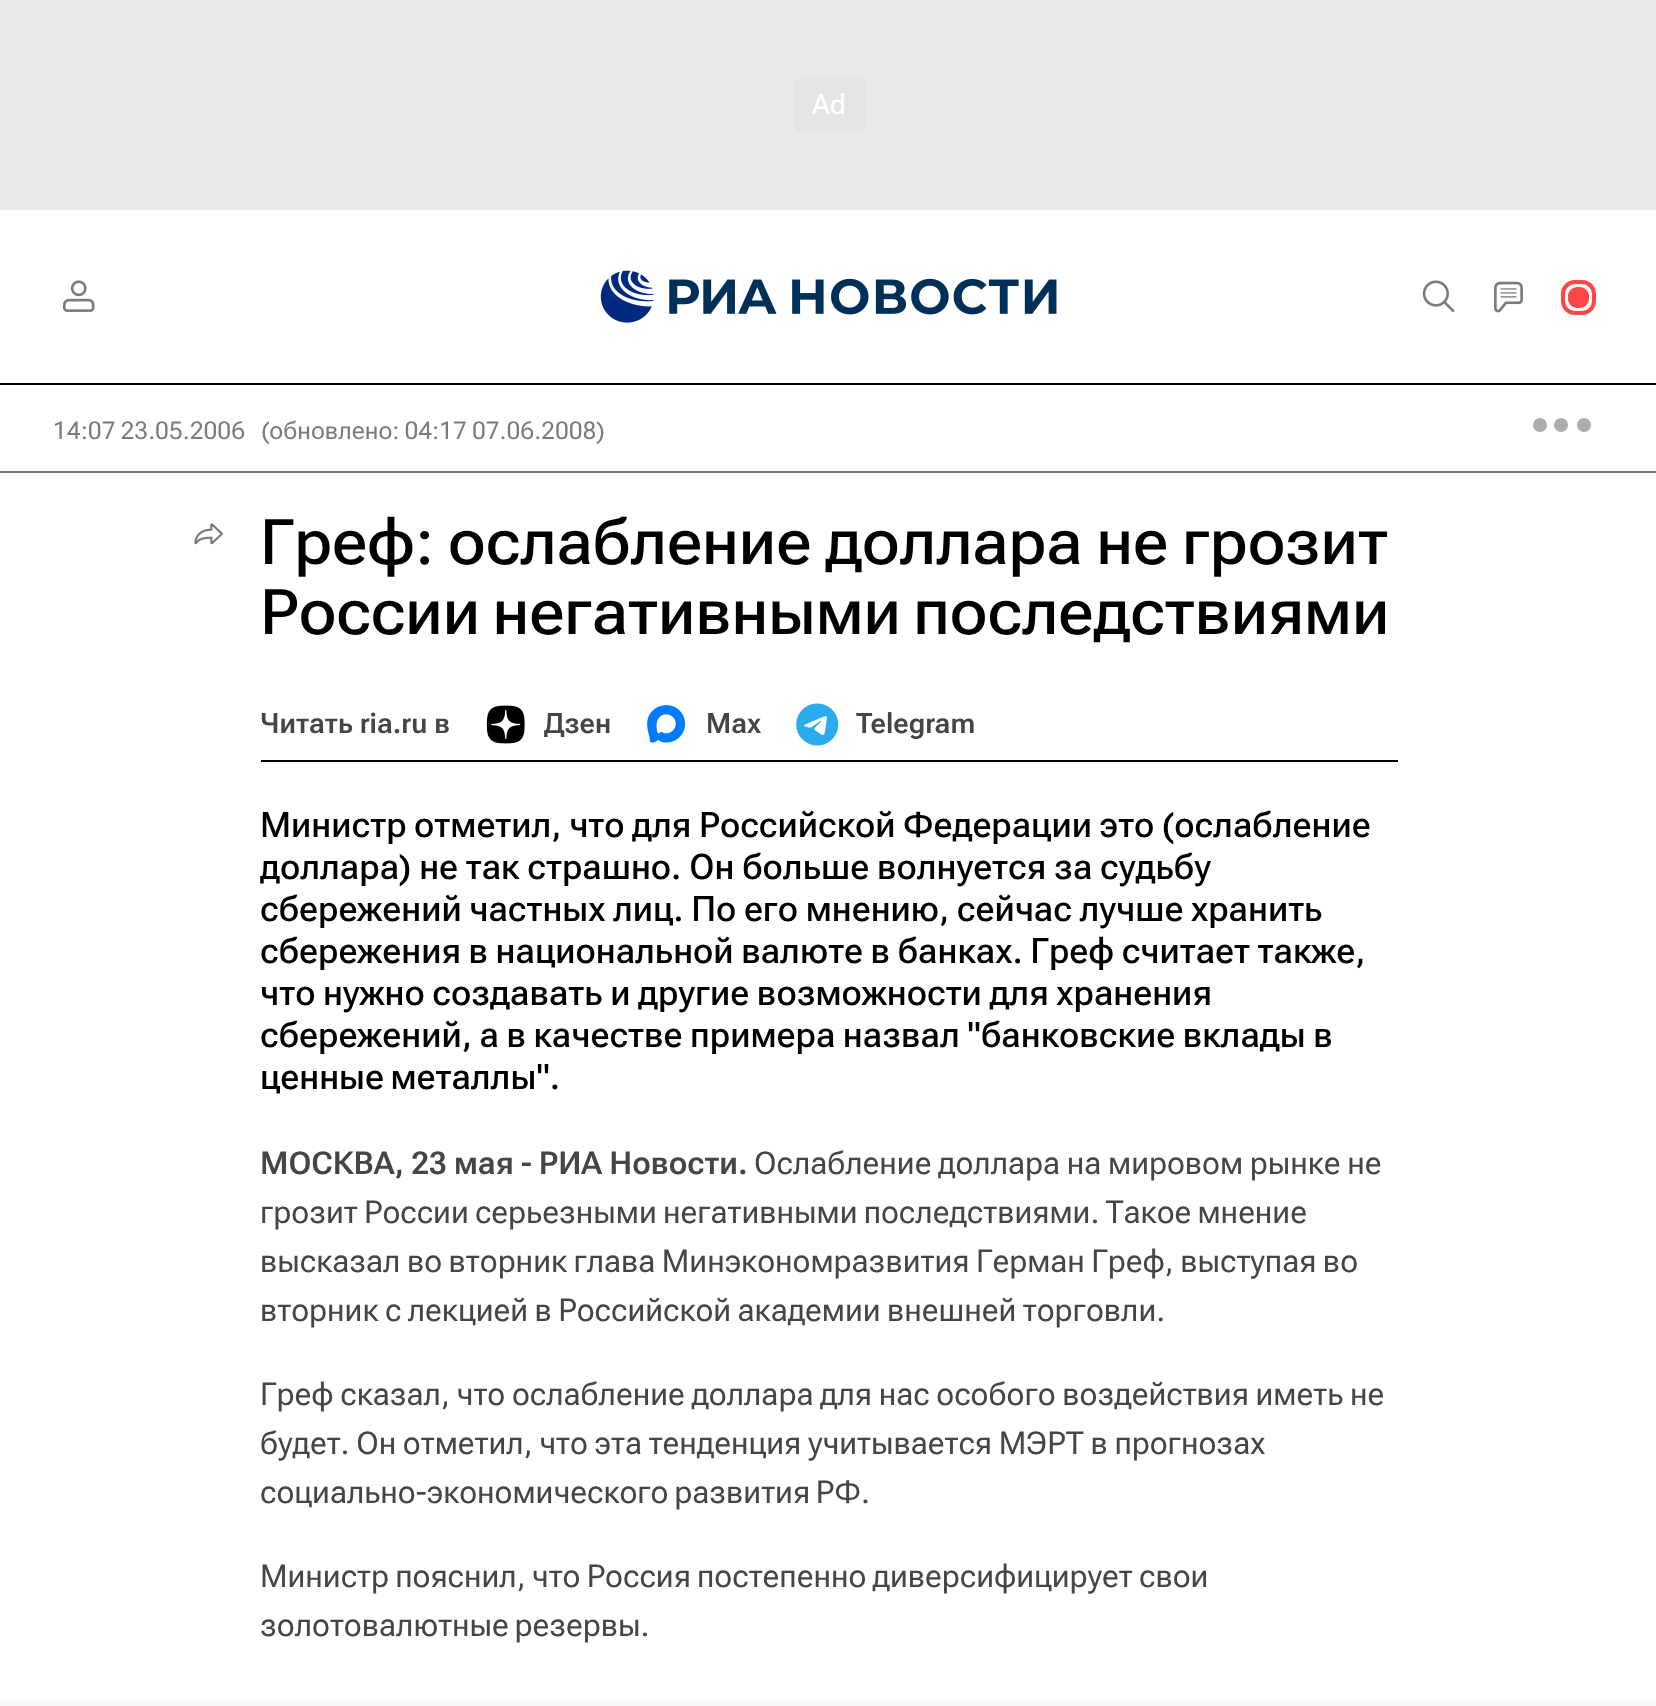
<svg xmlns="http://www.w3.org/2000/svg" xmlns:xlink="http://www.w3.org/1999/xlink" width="1656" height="1706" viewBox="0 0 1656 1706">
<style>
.cls-1{font:500 28px Roboto Flex;fill:#ffffff}
.cls-2{font:24.5px Roboto Flex;fill:#7b7b7b}
.cls-3{font:500 63px 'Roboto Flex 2';fill:#000000}
.cls-4{font:600 28px Roboto Flex;fill:#454545}
.cls-5{font:500 35px 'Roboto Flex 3';fill:#000000}
.cls-6{font:600 31.5px 'Roboto Flex 2';fill:#454545}
.cls-7{font:31.5px Roboto Flex;fill:#454545}
</style>
<defs>
<linearGradient id="g1" gradientUnits="userSpaceOnUse" x1="829" y1="1680" x2="829" y2="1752"><stop offset="0" stop-color="#000000" stop-opacity="0"/><stop offset="0.61" stop-color="#000000" stop-opacity="0.05"/><stop offset="0.86" stop-color="#000000" stop-opacity="0.09"/><stop offset="1" stop-color="#000000" stop-opacity="0.18"/></linearGradient>
</defs>
<rect width="100%" height="100%" fill="#e9e9e9"/>
<rect fill="#e4e4e4" x="795" y="79" width="70" height="52"/>
<rect fill="#ffffff" x="0" y="210" width="1656" height="1496"/>
<rect fill="#000000" x="0" y="383" width="1656" height="2"/>
<image xlink:href="image0.png" x="600" y="270" width="457" height="53"/>
<image xlink:href="image1.png" x="63" y="280" width="32" height="32"/>
<image xlink:href="image2.png" x="1422" y="280" width="33" height="32"/>
<image xlink:href="image3.png" x="1494" y="281" width="29" height="32"/>
<rect fill="#ff4545" x="1568" y="287" width="21" height="21" rx="9"/>
<rect fill="none" stroke="#ff4545" stroke-width="4" x="1563" y="282" width="31" height="31" rx="12"/>
<rect fill="#7b7b7b" x="0" y="471" width="1656" height="2"/>
<circle fill="#adadad" cx="1540" cy="425" r="7"/>
<circle fill="#adadad" cx="1561" cy="425" r="7"/>
<circle fill="#adadad" cx="1584" cy="425" r="7"/>
<image xlink:href="image4.png" x="194" y="523" width="29" height="22"/>
<rect fill="#000000" x="261" y="760" width="1137" height="2"/>
<image xlink:href="image5.png" x="486" y="705" width="39" height="39"/>
<image xlink:href="image6.png" x="647" y="705" width="38" height="38"/>
<image xlink:href="image7.png" x="796" y="703" width="43" height="43"/>
<rect fill="url(#g1)" x="0" y="1699" width="1656" height="7"/>
<text class="cls-1" x="812" y="114">Ad</text>
<text class="cls-2" x="53" y="439" word-spacing="-1">14:07 23.05.2006</text>
<text class="cls-2" x="261" y="439" word-spacing="-1">(обновлено: 04:17 07.06.2008)</text>
<text class="cls-3"><tspan x="260" y="564" word-spacing="-1.5">Греф: ослабление доллара не грозит</tspan><tspan x="260" y="634" word-spacing="-3">России негативными последствиями</tspan></text>
<text class="cls-4" x="260" y="733">Читать ria.ru в</text>
<text class="cls-4" x="544" y="733">Дзен</text>
<text class="cls-4" x="706" y="733">Max</text>
<text class="cls-4" x="856" y="733">Telegram</text>
<text class="cls-5"><tspan x="260" y="837" word-spacing="-1">Министр отметил, что для Российской Федерации это (ослабление</tspan><tspan x="260" y="879" word-spacing="-0.75">доллара) не так страшно. Он больше волнуется за судьбу</tspan><tspan x="260" y="921" word-spacing="-1">сбережений частных лиц. По его мнению, сейчас лучше хранить</tspan><tspan x="260" y="963" word-spacing="-1">сбережения в национальной валюте в банках. Греф считает также,</tspan><tspan x="260" y="1005" word-spacing="-1">что нужно создавать и другие возможности для хранения</tspan><tspan x="260" y="1047" word-spacing="-1">сбережений, а в качестве примера назвал "банковские вклады в</tspan><tspan x="260" y="1089" word-spacing="-2">ценные металлы".</tspan></text>
<text class="cls-6" x="260" y="1174" word-spacing="-0.5">МОСКВА, 23 мая - РИА Новости.</text>
<text class="cls-7" x="754" y="1174" word-spacing="-1">Ослабление доллара на мировом рынке не</text>
<text class="cls-7"><tspan x="260" y="1223" word-spacing="-1.5">грозит России серьезными негативными последствиями. Такое мнение</tspan><tspan x="260" y="1272" word-spacing="-1.25">высказал во вторник глава Минэкономразвития Герман Греф, выступая во</tspan><tspan x="260" y="1321" word-spacing="-1.25">вторник с лекцией в Российской академии внешней торговли.</tspan></text>
<text class="cls-7"><tspan x="260" y="1405" word-spacing="-1">Греф сказал, что ослабление доллара для нас особого воздействия иметь не</tspan><tspan x="260" y="1454" word-spacing="-1">будет. Он отметил, что эта тенденция учитывается МЭРТ в прогнозах</tspan><tspan x="260" y="1503" word-spacing="-2">социально-экономического развития РФ.</tspan></text>
<text class="cls-7"><tspan x="260" y="1587" word-spacing="-1.5">Министр пояснил, что Россия постепенно диверсифицирует свои</tspan><tspan x="260" y="1636" word-spacing="-2">золотовалютные резервы.</tspan></text>
</svg>
